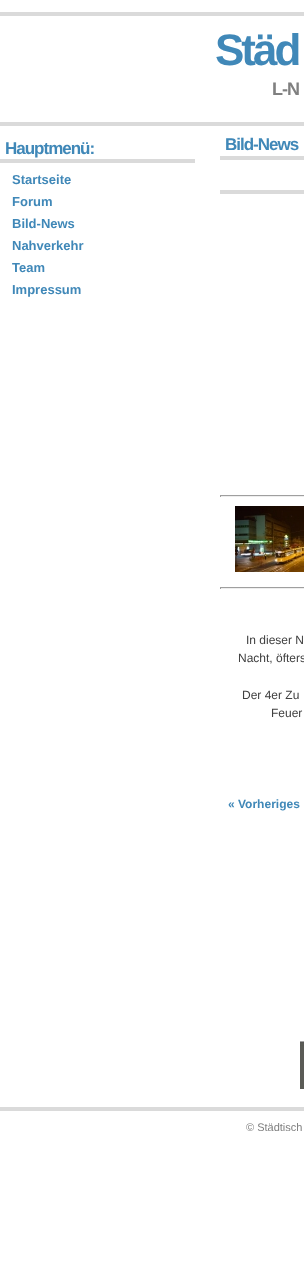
<svg xmlns="http://www.w3.org/2000/svg" xmlns:xlink="http://www.w3.org/1999/xlink" width="304" height="1279" viewBox="0 0 304 1279">
<style>
.cls-1{font:bold 44px Liberation Sans;letter-spacing:-3px;fill:#4088b8}
.cls-2{font:bold 18px Liberation Sans;letter-spacing:-1px;fill:#808080}
.cls-3{font:bold 17px Liberation Sans;letter-spacing:-1px;fill:#4088b8}
.cls-4{font:bold 13px Liberation Sans;fill:#4088b8}
.cls-5{font:12px Liberation Sans;fill:#404040}
.cls-6{font:bold 12px Liberation Sans;fill:#4088b8}
.cls-7{font:11px Liberation Sans;fill:#808080}
</style>
<rect width="100%" height="100%" fill="#ffffff"/>
<rect fill="#dadada" x="0" y="12" width="304" height="4"/>
<rect fill="#dadada" x="0" y="122" width="304" height="4"/>
<rect fill="#dadada" x="0" y="159" width="195" height="4"/>
<rect fill="#dadada" x="220" y="156" width="84" height="4"/>
<rect fill="#dadada" x="220" y="190" width="84" height="4"/>
<rect fill="#9f9f9f" x="220" y="495" width="84" height="1"/>
<rect fill="#eeeeee" x="220" y="496" width="84" height="1"/>
<rect fill="#9f9f9f" x="220" y="495" width="1" height="2"/>
<image xlink:href="image0.png" x="235" y="506" width="69" height="66"/>
<rect fill="#9f9f9f" x="220" y="587" width="84" height="1"/>
<rect fill="#eeeeee" x="220" y="588" width="84" height="1"/>
<rect fill="#9f9f9f" x="220" y="587" width="1" height="2"/>
<image xlink:href="image1.png" x="300" y="1041" width="4" height="48"/>
<rect fill="#dadada" x="0" y="1107" width="304" height="4"/>
<text class="cls-1" x="215" y="65">Städ</text>
<text class="cls-2" x="272" y="95">L-N</text>
<text class="cls-3" x="5" y="154">Hauptmenü:</text>
<text class="cls-4"><tspan x="12" y="184">Startseite</tspan><tspan x="12" y="206">Forum</tspan><tspan x="12" y="228">Bild-News</tspan><tspan x="12" y="250">Nahverkehr</tspan><tspan x="12" y="272">Team</tspan><tspan x="12" y="294">Impressum</tspan></text>
<text class="cls-3" x="225" y="150">Bild-News</text>
<text class="cls-5" x="246" y="644">In dieser N</text>
<text class="cls-5" x="238" y="662">Nacht, öfters</text>
<text class="cls-5" x="242" y="699">Der 4er Zu</text>
<text class="cls-5" x="271" y="717">Feuer</text>
<text class="cls-6" x="228" y="808">« Vorheriges</text>
<text class="cls-7" x="246" y="1131">© Städtisch</text>
</svg>
